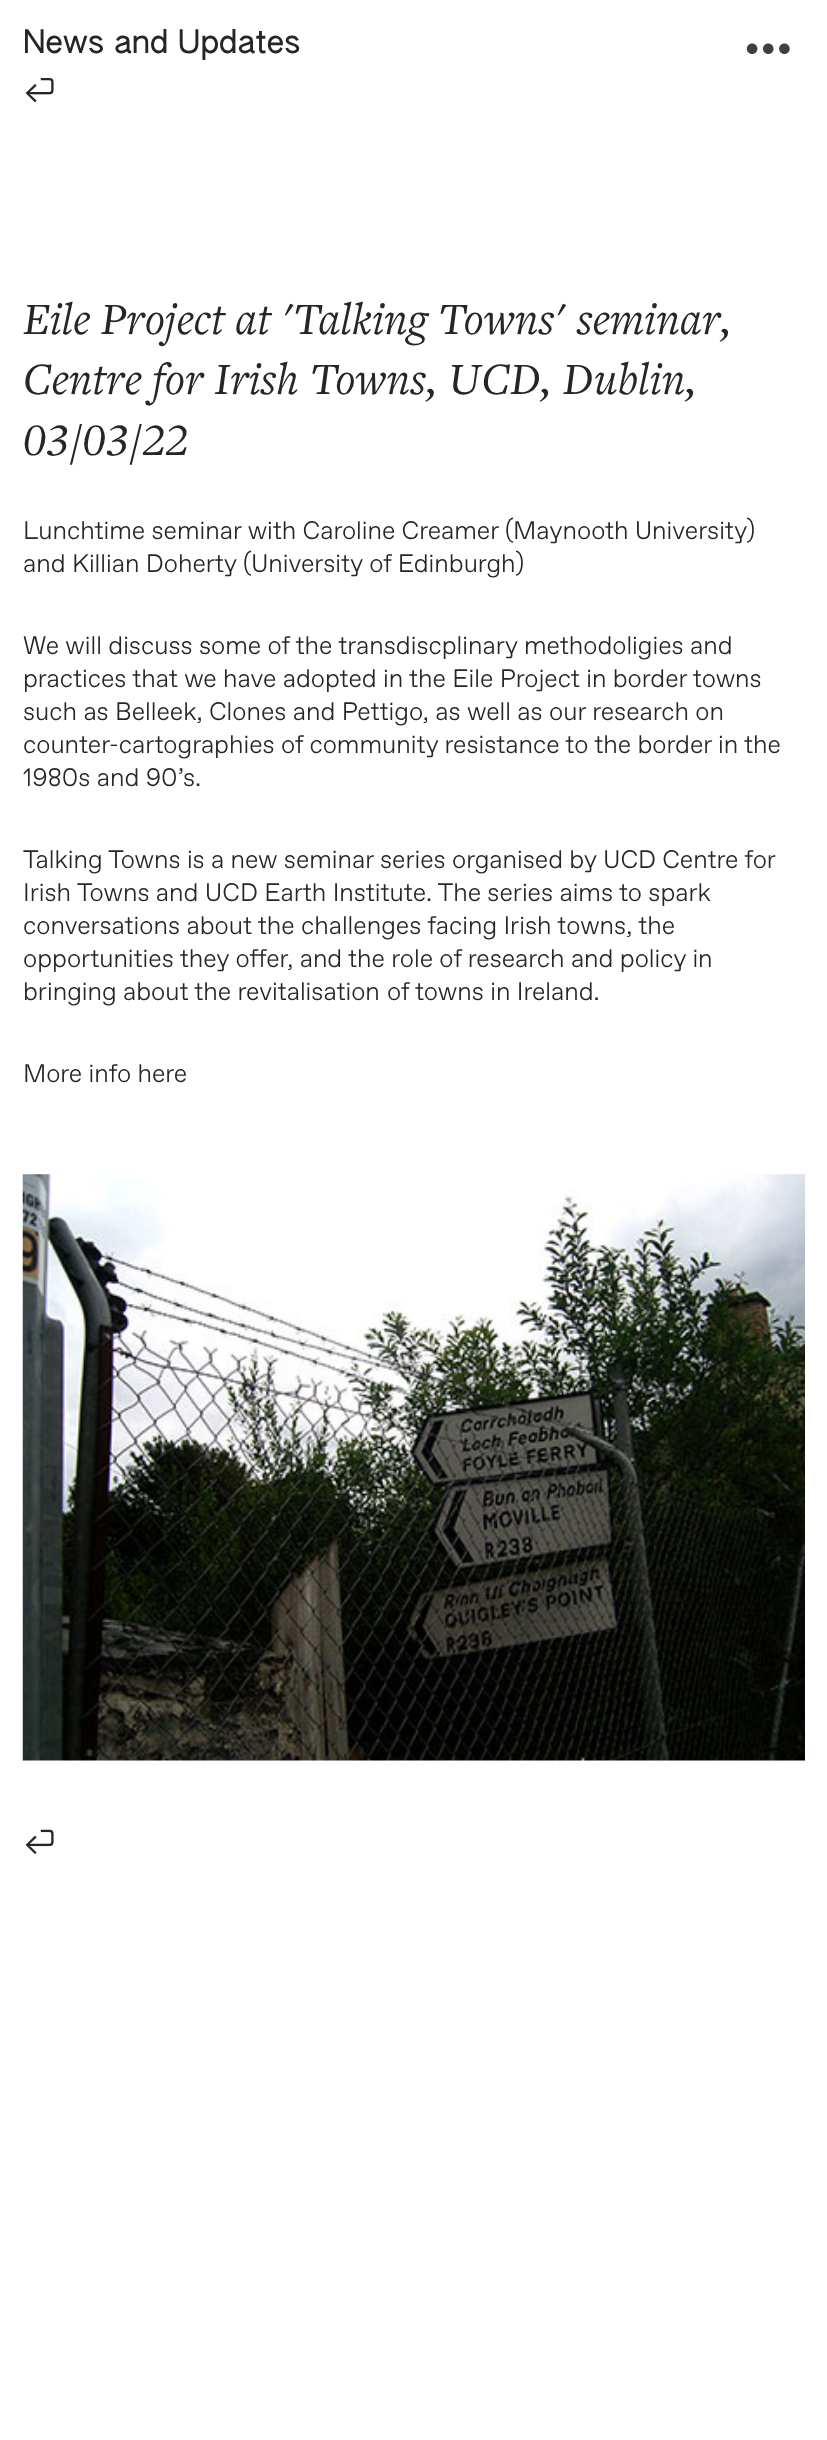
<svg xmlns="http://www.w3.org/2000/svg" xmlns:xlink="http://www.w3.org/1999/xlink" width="827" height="2440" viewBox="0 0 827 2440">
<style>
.cls-1{font:31.75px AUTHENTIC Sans;fill:#262626}
.cls-2{font:italic 46.6px 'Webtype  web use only';fill:#262626}
.cls-3{font:300 25.4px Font;fill:#262626}
</style>
<rect width="100%" height="100%" fill="#ffffff"/>
<image xlink:href="image0.png" x="25" y="78" width="29" height="25"/>
<image xlink:href="image1.png" x="22" y="1174" width="783" height="587"/>
<image xlink:href="image2.png" x="25" y="1829" width="29" height="25"/>
<image xlink:href="image3.png" x="746" y="43" width="44" height="12"/>
<text class="cls-1" x="23" y="53">News and Updates</text>
<text class="cls-2"><tspan x="23" y="334">Eile Project at 'Talking Towns' seminar,</tspan><tspan x="23" y="394">Centre for Irish Towns, UCD, Dublin,</tspan><tspan x="23" y="455">03/03/22</tspan></text>
<text class="cls-3"><tspan x="23" y="539" word-spacing="-0.1">Lunchtime seminar with Caroline Creamer (Maynooth University)</tspan><tspan x="23" y="572">and Killian Doherty (University of Edinburgh)</tspan></text>
<text class="cls-3"><tspan x="23" y="654">We will discuss some of the transdiscplinary methodoligies and</tspan><tspan x="23" y="687">practices that we have adopted in the Eile Project in border towns</tspan><tspan x="23" y="720">such as Belleek, Clones and Pettigo, as well as our research on</tspan><tspan x="23" y="753">counter-cartographies of community resistance to the border in the</tspan><tspan x="23" y="786">1980s and 90’s.</tspan></text>
<text class="cls-3"><tspan x="23" y="868" word-spacing="-0.1">Talking Towns is a new seminar series organised by UCD Centre for</tspan><tspan x="23" y="901">Irish</tspan></text>
<text class="cls-3" x="77" y="901">Towns and UCD Earth Institute. The series aims to spark</text>
<text class="cls-3"><tspan x="23" y="934">conversations about the challenges facing Irish towns, the</tspan><tspan x="23" y="967">opportunities they offer, and the role of research and policy in</tspan><tspan x="23" y="1000">bringing about the revitalisation</tspan></text>
<text class="cls-3" x="387" y="1000">of towns in Ireland.</text>
<text class="cls-3" x="23" y="1082">More info here</text>
</svg>
